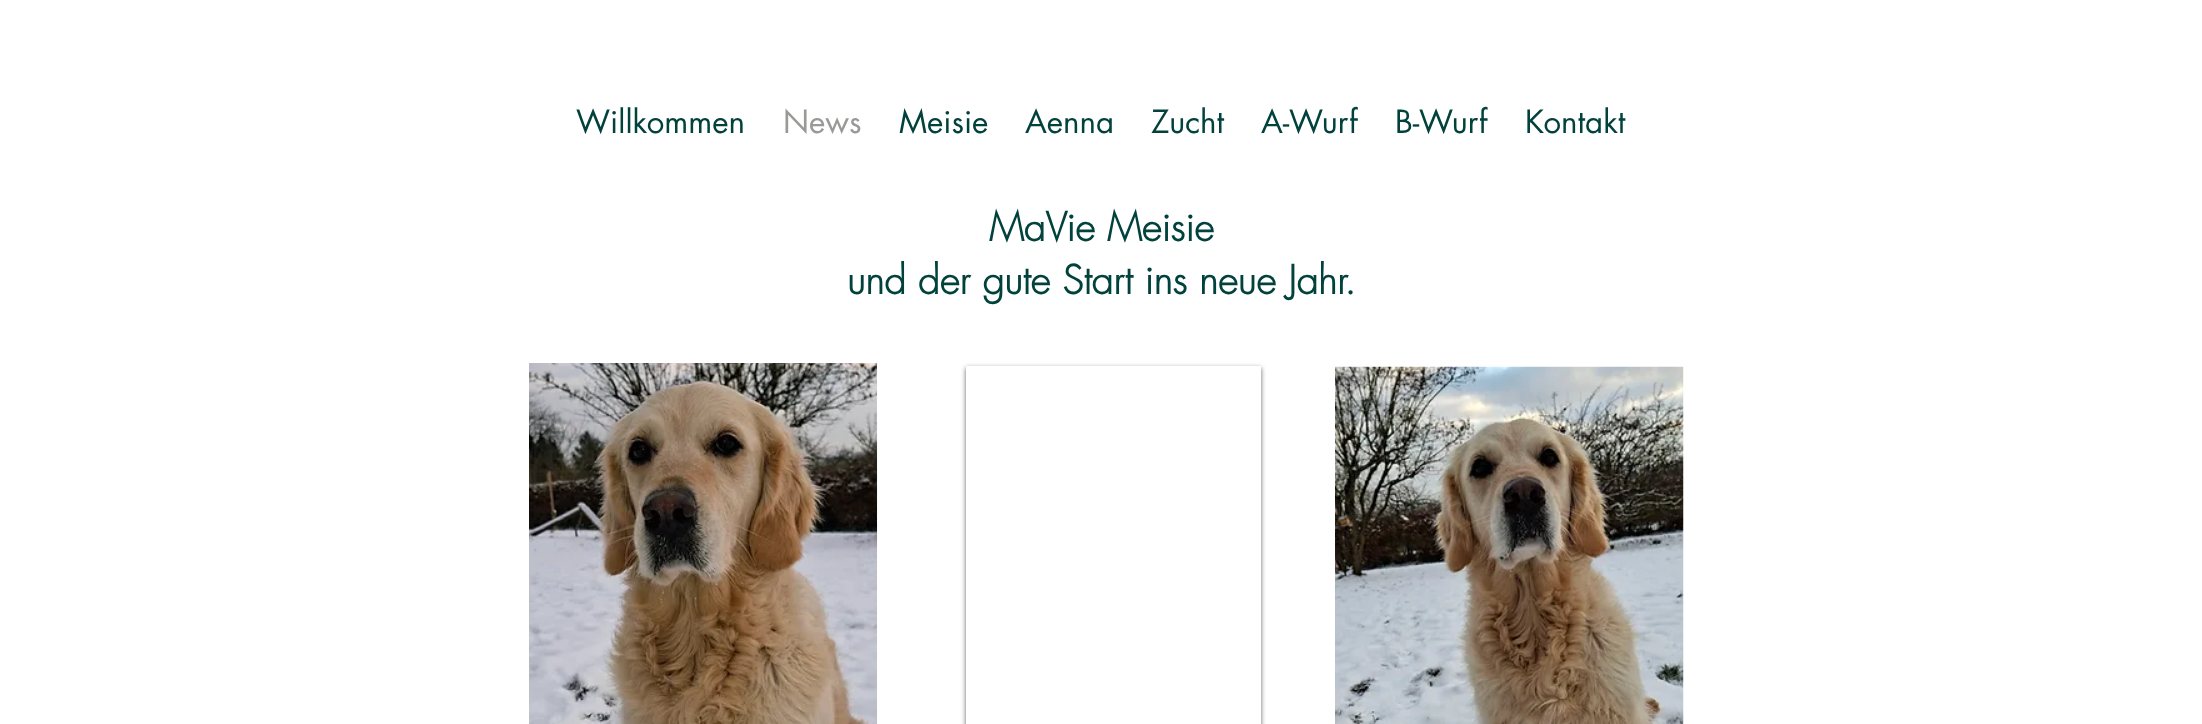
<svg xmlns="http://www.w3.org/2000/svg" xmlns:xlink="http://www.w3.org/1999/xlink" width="2202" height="724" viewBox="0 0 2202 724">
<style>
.cls-1{font:31.25px futura;fill:#02423d}
.cls-2{font:31.25px futura;fill:#999997}
.cls-3{font:bold 38.75px futura;fill:#02423d}
</style>
<defs>
<clipPath id="clip1"><path d="M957 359H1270V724H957ZM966 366H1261V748H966Z" clip-rule="evenodd"/></clipPath>
</defs>
<rect width="100%" height="100%" fill="#ffffff"/>
<image xlink:href="image0.png" x="529" y="363" width="349" height="361"/>
<g clip-path="url(#clip1)">
<rect fill="#000000" fill-opacity="0.6" filter="blur(2.5px)" x="966" y="368" width="295" height="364"/>
</g>
<image xlink:href="image1.png" x="1335" y="366" width="349" height="358"/>
<text class="cls-1" x="576" y="133">Willkommen</text>
<text class="cls-2" x="783" y="133">News</text>
<text class="cls-1" x="899" y="133">Meisie</text>
<text class="cls-1" x="1025" y="133">Aenna</text>
<text class="cls-1" x="1151" y="133">Zucht</text>
<text class="cls-1" x="1261" y="133">A-Wurf</text>
<text class="cls-1" x="1395" y="133">B-Wurf</text>
<text class="cls-1" x="1525" y="133">Kontakt</text>
<text class="cls-3" x="989" y="241">MaVie Meisie</text>
<text class="cls-3" x="847" y="294">und der gute Start ins neue Jahr.</text>
</svg>
